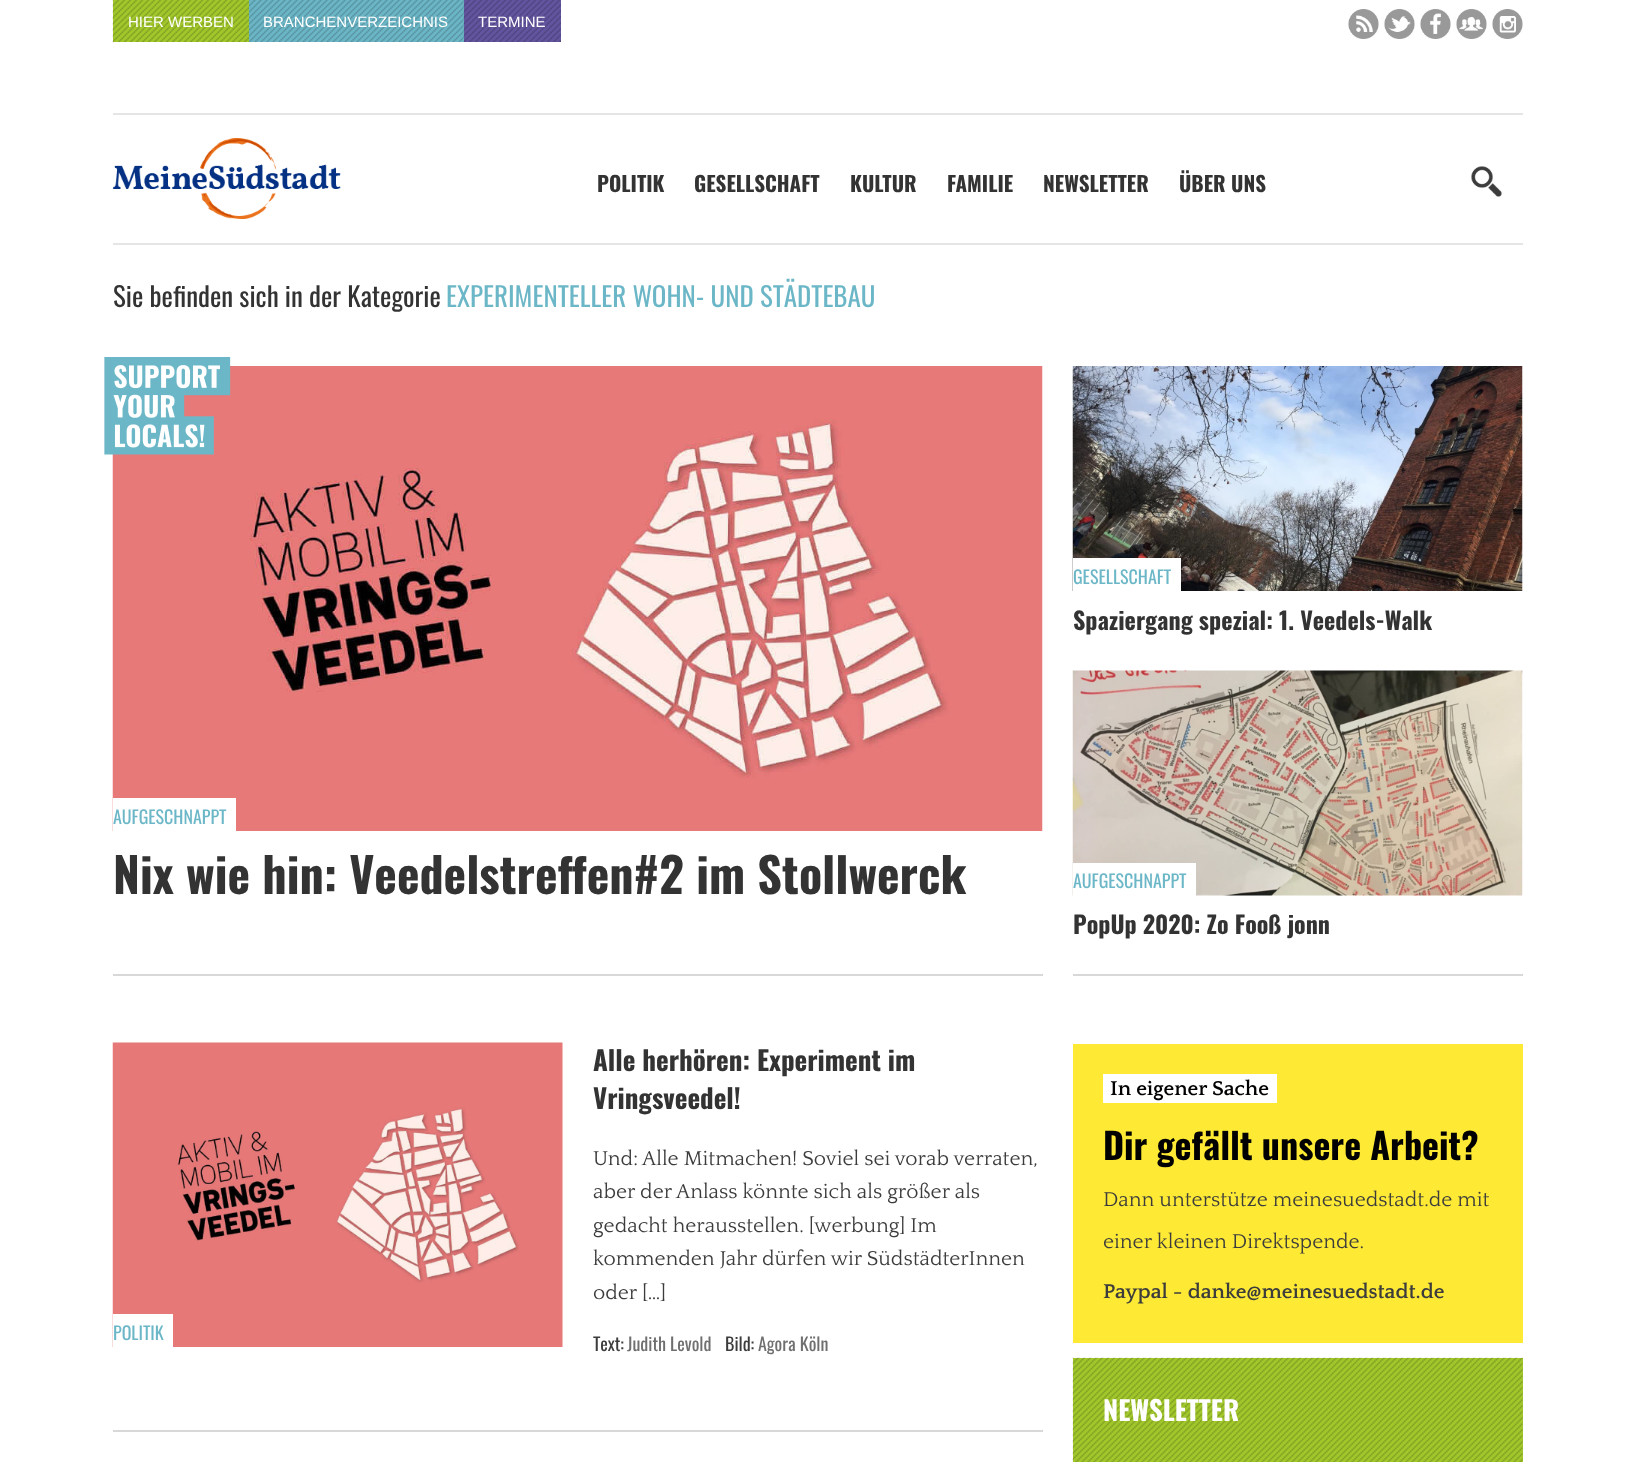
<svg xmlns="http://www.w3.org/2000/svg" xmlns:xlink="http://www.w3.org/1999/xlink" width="1634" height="1462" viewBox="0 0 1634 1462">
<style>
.cls-1{font:15px Liberation Sans;fill:#ffffff}
.cls-2{font:bold 21px Oswald;fill:#333333}
.cls-3{font:27px Oswald;fill:#333333}
.cls-4{font:27px Oswald;fill:#6cb7c7}
.cls-5{font:18px Oswald;fill:#6cb7c7}
.cls-6{font:bold 24px Oswald;fill:#333333}
.cls-7{font:bold 48px Oswald;fill:#333333}
.cls-8{font:bold 27px Oswald;fill:#333333}
.cls-9{font:21px Quattrocento;fill:#3c3c3c}
.cls-10{font:18px Oswald;fill:#3c3c3c}
.cls-11{font:18px Oswald;fill:#6f6f6f}
.cls-12{font:bold 21px Quattrocento;fill:#000000}
.cls-13{font:bold 36px Oswald;fill:#000000}
.cls-14{font:bold 21px Quattrocento;fill:#3c3c3c}
.cls-15{font:bold 27px Oswald;fill:#ffffff}
</style>
<rect width="100%" height="100%" fill="#ffffff"/>
<rect fill="#a2c82c" x="113" y="0" width="136" height="42"/>
<image xlink:href="image0.png" x="112" y="0" width="137" height="42"/>
<rect fill="#6cb7c7" x="249" y="0" width="215" height="42"/>
<image xlink:href="image1.png" x="249" y="0" width="215" height="42"/>
<rect fill="#6455a0" x="464" y="0" width="97" height="42"/>
<image xlink:href="image2.png" x="463" y="0" width="98" height="42"/>
<image xlink:href="image3.png" x="1348" y="9" width="31" height="30"/>
<image xlink:href="image4.png" x="1384" y="9" width="31" height="30"/>
<image xlink:href="image5.png" x="1420" y="9" width="31" height="30"/>
<image xlink:href="image6.png" x="1456" y="9" width="31" height="30"/>
<image xlink:href="image7.png" x="1492" y="9" width="31" height="30"/>
<rect fill="#e5e5e5" x="113" y="113" width="1410" height="2"/>
<rect fill="#e5e5e5" x="113" y="243" width="1410" height="2"/>
<image xlink:href="image8.png" x="112" y="138" width="229" height="81"/>
<image xlink:href="image9.png" x="1471" y="166" width="31" height="31"/>
<image xlink:href="image12.png" x="112" y="366" width="931" height="465"/>
<image xlink:href="image10.png" x="104" y="357" width="127" height="98"/>
<image xlink:href="image11.png" x="1072" y="366" width="451" height="225"/>
<rect fill="#ffffff" x="1073" y="558" width="108" height="33"/>
<rect fill="#ffffff" x="113" y="798" width="123" height="33"/>
<image xlink:href="image13.png" x="1072" y="670" width="451" height="226"/>
<rect fill="#ffffff" x="1073" y="863" width="123" height="33"/>
<rect fill="#d8d8d8" x="113" y="974" width="930" height="2"/>
<image xlink:href="image14.png" x="112" y="1042" width="451" height="305"/>
<rect fill="#ffffff" x="113" y="1314" width="60" height="33"/>
<rect fill="#d8d8d8" x="1073" y="974" width="450" height="2"/>
<rect fill="#feea34" x="1073" y="1044" width="450" height="299"/>
<rect fill="#ffffff" x="1103" y="1074" width="174" height="29"/>
<rect fill="#a2c82c" x="1073" y="1358" width="450" height="104"/>
<image xlink:href="image15.png" x="1072" y="1357" width="451" height="105"/>
<rect fill="#d8d8d8" x="113" y="1430" width="930" height="2"/>
<text class="cls-1" x="128" y="27">HIER WERBEN</text>
<text class="cls-1" x="263" y="27">BRANCHENVERZEICHNIS</text>
<text class="cls-1" x="478" y="27">TERMINE</text>
<text class="cls-2" x="597" y="192">POLITIK</text>
<text class="cls-2" x="694" y="192">GESELLSCHAFT</text>
<text class="cls-2" x="850" y="192">KULTUR</text>
<text class="cls-2" x="947" y="192">FAMILIE</text>
<text class="cls-2" x="1043" y="192">NEWSLETTER</text>
<text class="cls-2" x="1179" y="192">ÜBER UNS</text>
<text class="cls-3" x="113" y="307">Sie befinden sich in der Kategorie</text>
<text class="cls-4" x="446" y="307">EXPERIMENTELLER WOHN- UND STÄDTEBAU</text>
<text class="cls-5" x="1073" y="584">GESELLSCHAFT</text>
<text class="cls-6" x="1073" y="630">Spaziergang spezial: 1. Veedels-Walk</text>
<text class="cls-5" x="113" y="824">AUFGESCHNAPPT</text>
<text class="cls-7" x="113" y="894">Nix wie hin: Veedelstreffen#2 im Stollwerck</text>
<text class="cls-5" x="1073" y="888">AUFGESCHNAPPT</text>
<text class="cls-6" x="1073" y="934">PopUp 2020: Zo Fooß jonn</text>
<text class="cls-5" x="113" y="1340">POLITIK</text>
<text class="cls-8"><tspan x="593" y="1071">Alle herhören: Experiment im</tspan><tspan x="593" y="1109">Vringsveedel!</tspan></text>
<text class="cls-9"><tspan x="593" y="1165">Und: Alle Mitmachen! Soviel sei vorab verraten,</tspan><tspan x="593" y="1198">aber der Anlass könnte sich als größer als</tspan><tspan x="593" y="1232">gedacht herausstellen. [werbung] Im</tspan><tspan x="593" y="1265">kommenden Jahr dürfen wir SüdstädterInnen</tspan><tspan x="593" y="1299">oder […]</tspan></text>
<text class="cls-10" x="593" y="1351">Text:</text>
<text class="cls-11" x="627" y="1351">Judith Levold</text>
<text class="cls-10" x="725" y="1351">Bild:</text>
<text class="cls-11" x="758" y="1351">Agora Köln</text>
<text class="cls-12" x="1110" y="1095">In eigener Sache</text>
<text class="cls-13" x="1103" y="1160">Dir gefällt unsere Arbeit?</text>
<text class="cls-9" x="1103" y="1206">Dann unterstütze meinesuedstadt.de mit</text>
<text class="cls-9" x="1103" y="1248">einer kleinen Direktspende.</text>
<text class="cls-14" x="1103" y="1298">Paypal - danke@meinesuedstadt.de</text>
<text class="cls-15" x="1103" y="1421">NEWSLETTER</text>
</svg>
